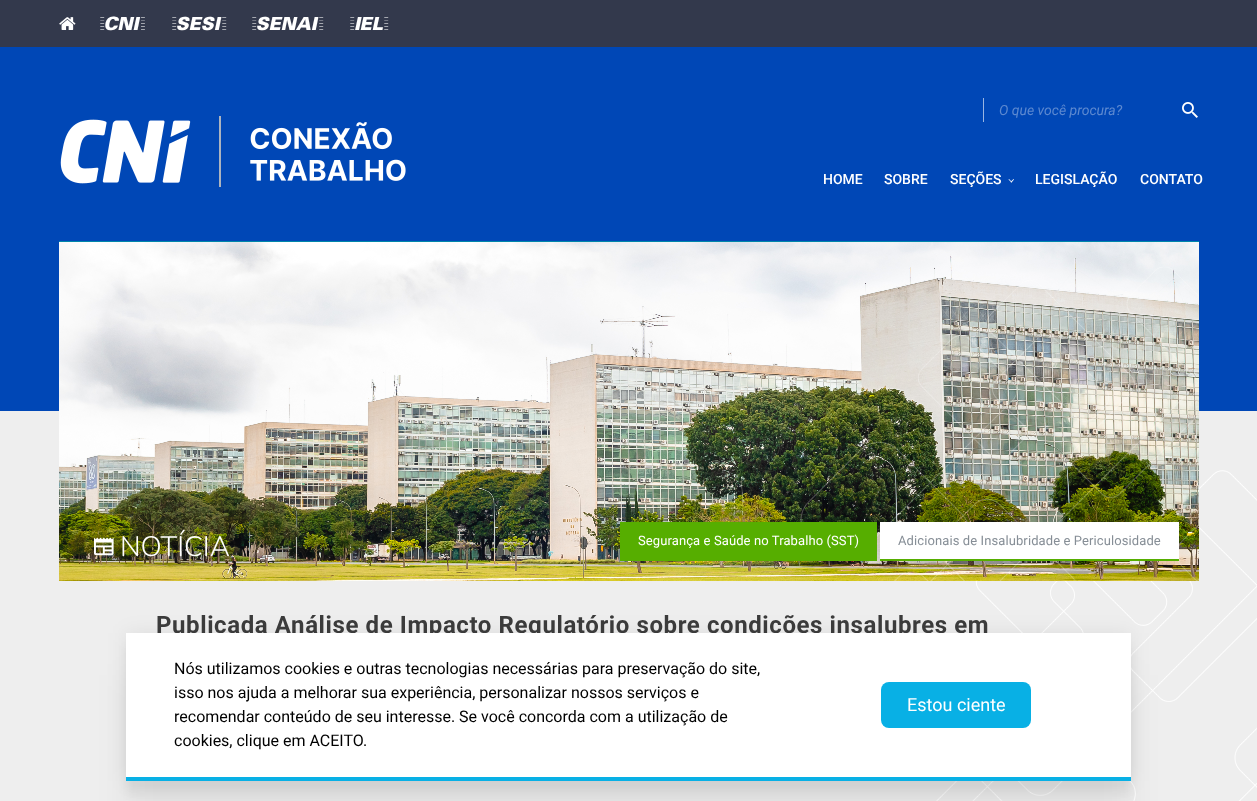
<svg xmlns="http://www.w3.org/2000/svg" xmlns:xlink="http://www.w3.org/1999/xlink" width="1257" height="801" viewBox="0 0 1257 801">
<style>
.cls-1{font:500 18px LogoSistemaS;fill:#ffffff}
.cls-2{font:italic 14px Roboto;fill:#5c89d0}
.cls-3{font:500 14px Roboto;fill:#ffffff}
.cls-4{font:300 28px Nunito;fill:#ffffff}
.cls-5{font:13px Roboto;letter-spacing:0.1px;fill:#ffffff}
.cls-6{font:13px Roboto;letter-spacing:0.1px;fill:#868e96}
.cls-7{font:bold 24px Roboto;letter-spacing:0.6px;fill:#3b3b3b}
.cls-8{font:16px Roboto;fill:#000000}
.cls-9{font:18px Roboto;fill:#ffffff}
</style>
<rect width="100%" height="100%" fill="#eeeeee"/>
<image xlink:href="image0.png" x="936" y="470" width="321" height="331"/>
<rect fill="#0047b6" x="0" y="47" width="1257" height="364"/>
<rect fill="#33394c" x="0" y="0" width="1257" height="47"/>
<image xlink:href="image1.png" x="59" y="17" width="17" height="13"/>
<image xlink:href="image2.png" x="60" y="116" width="346" height="71"/>
<rect fill="#99b5e2" x="983" y="98" width="1" height="24"/>
<image xlink:href="image3.png" x="1182" y="102" width="16" height="16"/>
<path fill="#ffffff" d="M1010.5 182L1013.5 179L1014 179.5L1011.5 182.5Z"/>
<path fill="#ffffff" d="M1008.5 179.5L1009 179L1012 182L1011.5 182.5Z"/>
<rect fill="#0086ab" x="59" y="241" width="1140" height="1"/>
<image xlink:href="image4.png" x="59" y="242" width="1140" height="339"/>
<image xlink:href="image5.png" x="800" y="267" width="399" height="314"/>
<image xlink:href="image6.png" x="94" y="537" width="20" height="19"/>
<rect fill="#56ae00" x="620" y="522" width="257" height="39"/>
<rect fill="#ffffff" x="880" y="522" width="299" height="37"/>
<rect fill="#56ae00" x="880" y="559" width="299" height="2"/>
<rect fill="#000000" fill-opacity="0.04" filter="blur(5px)" x="126" y="646" width="1005" height="148"/>
<rect fill="#000000" fill-opacity="0.05" filter="blur(16.5px)" x="126" y="675" width="1005" height="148"/>
<rect fill="#000000" fill-opacity="0.07" filter="blur(10px)" x="126" y="633" width="1005" height="148"/>
<rect fill="#08b0e5" x="126" y="777" width="1005" height="4"/>
<text class="cls-1" x="99" y="30">=CNI=</text>
<text class="cls-1" x="171" y="30">=SESI=</text>
<text class="cls-1" x="251" y="30">=SENAI=</text>
<text class="cls-1" x="349" y="30">=IEL=</text>
<text class="cls-2" x="999" y="115">O que você procura?</text>
<text class="cls-3" x="823" y="184">HOME</text>
<text class="cls-3" x="884" y="184">SOBRE</text>
<text class="cls-3" x="950" y="184">SEÇÕES</text>
<text class="cls-3" x="1035" y="184">LEGISLAÇÃO</text>
<text class="cls-3" x="1140" y="184">CONTATO</text>
<text class="cls-4" x="120" y="556">NOTÍCIA</text>
<text class="cls-5" x="638" y="545">Segurança e Saúde no Trabalho (SST)</text>
<text class="cls-6" x="898" y="545">Adicionais de Insalubridade e Periculosidade</text>
<text class="cls-7" x="156" y="633">Publicada Análise de Impacto Regulatório sobre condições insalubres em</text>
<rect fill="#ffffff" x="126" y="633" width="1005" height="144"/>
<text class="cls-8"><tspan x="174" y="674">Nós utilizamos cookies e outras tecnologias necessárias para preservação do site,</tspan><tspan x="174" y="698">isso nos ajuda a melhorar sua experiência, personalizar nossos serviços e</tspan><tspan x="174" y="722">recomendar conteúdo de seu interesse. Se você concorda com a utilização de</tspan><tspan x="174" y="746">cookies, clique em ACEITO.</tspan></text>
<rect fill="#08b0e5" x="881" y="682" width="150" height="46" rx="8"/>
<text class="cls-9" x="907" y="711">Estou ciente</text>
</svg>
